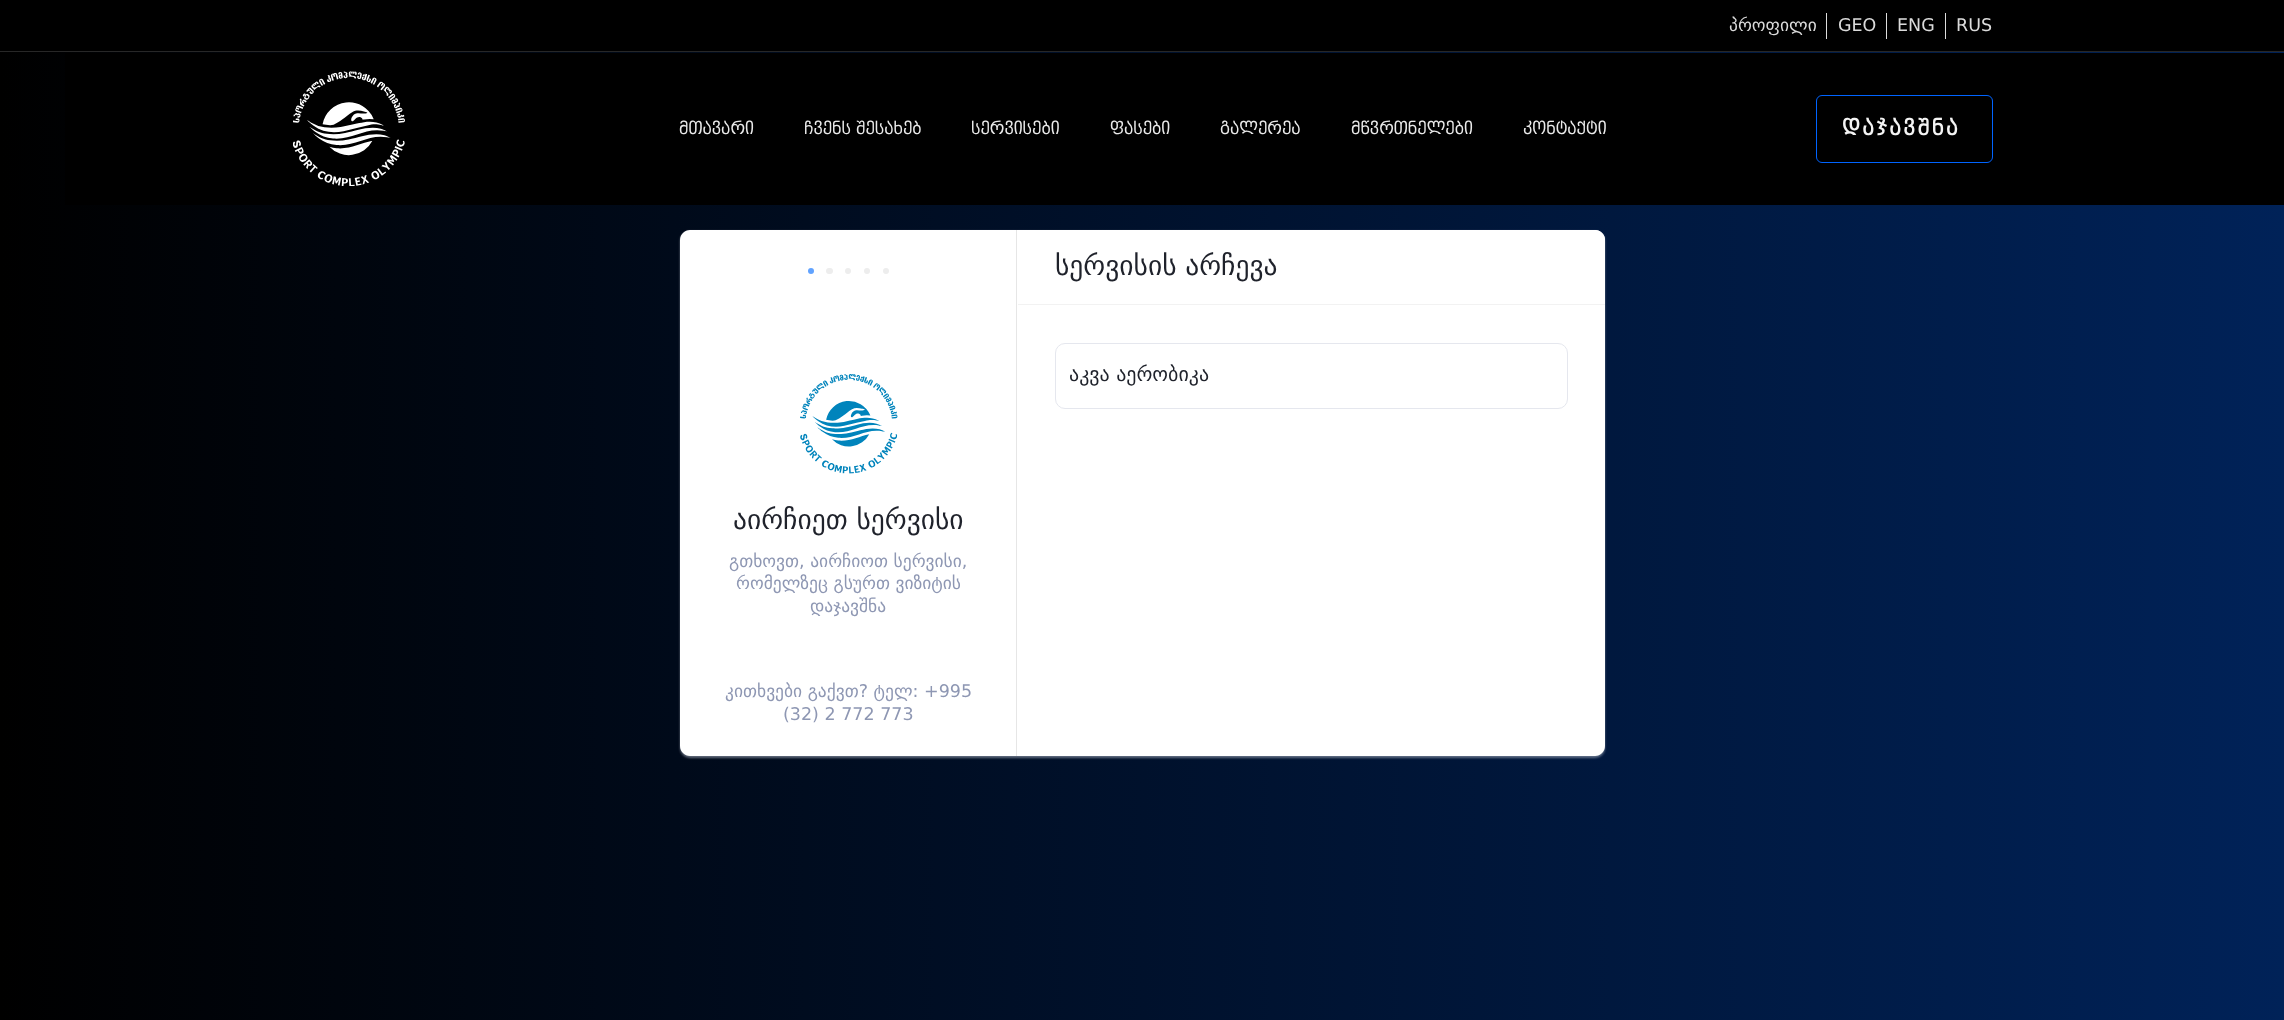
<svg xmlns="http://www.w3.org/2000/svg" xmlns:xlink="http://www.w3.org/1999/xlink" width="2284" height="1020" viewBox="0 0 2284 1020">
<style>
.cls-1{font:17.5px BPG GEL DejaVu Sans;fill:#dbdbdb}
.cls-2{font:16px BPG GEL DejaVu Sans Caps;fill:#eaeaea}
.cls-3{font:bold 20px BPG GEL DejaVu Sans Caps;letter-spacing:2.5px;fill:#f4f4f4}
.cls-4{font:27.5px BPG GEL DejaVu Sans;fill:#1f222b}
.cls-5{font:20px BPG GEL DejaVu Sans;fill:#1f222b}
.cls-6{font:17.5px BPG GEL DejaVu Sans;fill:#8e97b3}
</style>
<defs>
<linearGradient id="g1" gradientUnits="userSpaceOnUse" x1="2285" y1="648" x2="0" y2="648"><stop offset="0" stop-color="#002258"/><stop offset="1" stop-color="#000000"/></linearGradient>
</defs>
<rect width="100%" height="100%" fill="#ffffff"/>
<rect fill="url(#g1)" x="0" y="52" width="2284" height="968"/>
<rect fill="#000000" x="0" y="0" width="2284" height="51"/>
<rect fill="#272727" x="0" y="51" width="2284" height="1"/>
<rect fill="#dddddd" x="1826" y="13" width="1" height="26"/>
<rect fill="#dddddd" x="1886" y="13" width="1" height="26"/>
<rect fill="#dddddd" x="1945" y="13" width="1" height="26"/>
<rect fill="#000000" x="65" y="53" width="2219" height="152"/>
<image xlink:href="image0.png" x="293" y="71" width="112" height="115"/>
<rect fill="none" stroke="#0064ff" x="1816.5" y="95.5" width="176" height="67" rx="5.5"/>
<rect fill="#a0aab9" fill-opacity="0.6" filter="blur(1px)" x="680" y="231" width="925" height="527" rx="10"/>
<path fill="#ffffff" d="M1018 230H1595C1600.5 230 1605 234.5 1605 240V746C1605 751.5 1600.5 756 1595 756H1018Z"/>
<path fill="#ffffff" d="M1018 230H1595C1600.5 230 1605 234.5 1605 240V305H1018Z"/>
<rect fill="#f2f2f2" x="1018" y="304" width="587" height="1"/>
<rect fill="none" stroke="#e5e7ee" x="1055.5" y="343.5" width="512" height="65" rx="9.5"/>
<path fill="#ffffff" d="M690 230H1018V756H690C684.5 756 680 751.5 680 746V240C680 234.5 684.5 230 690 230Z"/>
<rect fill="#e6e6e6" x="1016" y="230" width="1" height="526"/>
<circle fill="#61a3ff" cx="811" cy="271" r="3"/>
<rect fill="#ededed" x="826" y="268" width="7" height="6" rx="3"/>
<circle fill="#ededed" cx="848" cy="271" r="3"/>
<circle fill="#ededed" cx="867" cy="271" r="3"/>
<circle fill="#ededed" cx="886" cy="271" r="3"/>
<image xlink:href="image1.png" x="800" y="374" width="98" height="100"/>
<text class="cls-1" x="1729" y="31">პროფილი</text>
<text class="cls-1" x="1838" y="31">GEO</text>
<text class="cls-1" x="1897" y="31">ENG</text>
<text class="cls-1" x="1956" y="31">RUS</text>
<text class="cls-2" x="679" y="134">მთავარი</text>
<text class="cls-2" x="804" y="134">ჩვენს შესახებ</text>
<text class="cls-2" x="971" y="134">სერვისები</text>
<text class="cls-2" x="1110" y="134">ფასები</text>
<text class="cls-2" x="1220" y="134">გალერეა</text>
<text class="cls-2" x="1351" y="134">მწვრთნელები</text>
<text class="cls-2" x="1523" y="134">კონტაქტი</text>
<text class="cls-3" x="1842" y="135">დაჯავშნა</text>
<text class="cls-4" x="1055" y="275">სერვისის არჩევა</text>
<text class="cls-5" x="1069" y="381">აკვა აერობიკა</text>
<text class="cls-4" x="733" y="529">აირჩიეთ სერვისი</text>
<text class="cls-6" x="729" y="567">გთხოვთ, აირჩიოთ სერვისი,</text>
<text class="cls-6" x="736" y="589">რომელზეც გსურთ ვიზიტის</text>
<text class="cls-6" x="810" y="612">დაჯავშნა</text>
<text class="cls-6" x="725" y="697">კითხვები გაქვთ? ტელ: +995</text>
<text class="cls-6" x="783" y="720">(32) 2 772 773</text>
</svg>
